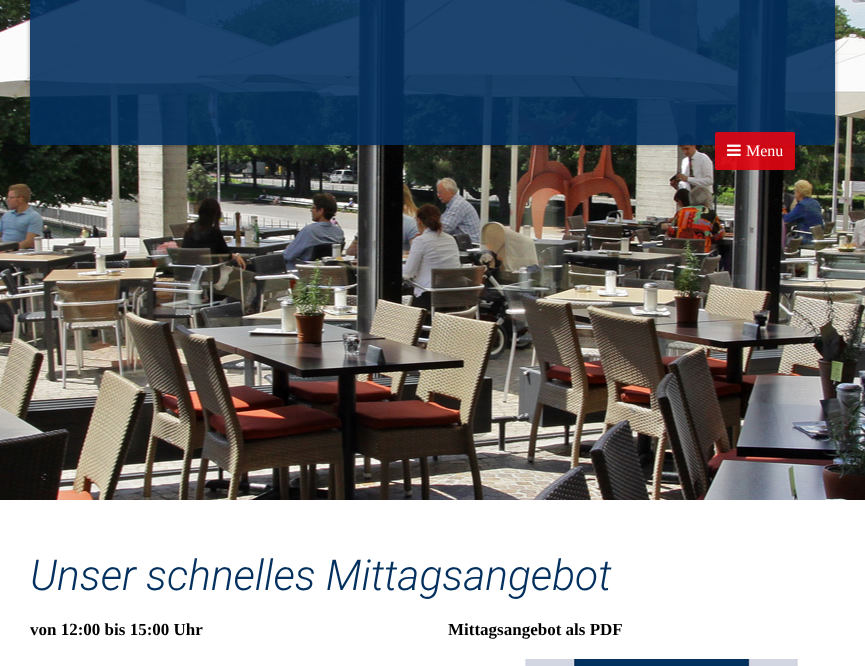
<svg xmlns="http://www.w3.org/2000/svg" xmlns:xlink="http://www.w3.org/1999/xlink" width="865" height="666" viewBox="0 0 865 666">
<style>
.cls-1{font:16px Liberation Serif;fill:#ffffff}
.cls-2{font:italic 300 42.5px Roboto;fill:#03305e}
.cls-3{font:bold 17px Liberation Serif;fill:#000000}
</style>
<defs>
<clipPath id="clip1"><path d="M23 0H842V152H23ZM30 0H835V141C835 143 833 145 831 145H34C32 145 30 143 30 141Z" clip-rule="evenodd"/></clipPath>
</defs>
<rect width="100%" height="100%" fill="#ffffff"/>
<image xlink:href="image0.png" x="0" y="0" width="865" height="500"/>
<g clip-path="url(#clip1)">
<rect fill="#000000" fill-opacity="0.4" filter="blur(2px)" x="30" y="0" width="805" height="145" rx="4"/>
</g>
<path fill="#03305e" fill-opacity="0.9" d="M30 0H835V141C835 143 833 145 831 145H34C32 145 30 143 30 141Z"/>
<rect fill="#e30513" fill-opacity="0.9" x="715" y="132" width="80" height="38" rx="2"/>
<image xlink:href="image1.png" x="727" y="144" width="14" height="12"/>
<image xlink:href="image2.png" x="525" y="659" width="273" height="7"/>
<text class="cls-1" x="746" y="156">Menu</text>
<text class="cls-2" x="30" y="590">Unser schnelles Mittagsangebot</text>
<text class="cls-3" x="30" y="635">von 12:00 bis 15:00 Uhr</text>
<text class="cls-3" x="448" y="635">Mittagsangebot als PDF</text>
</svg>
